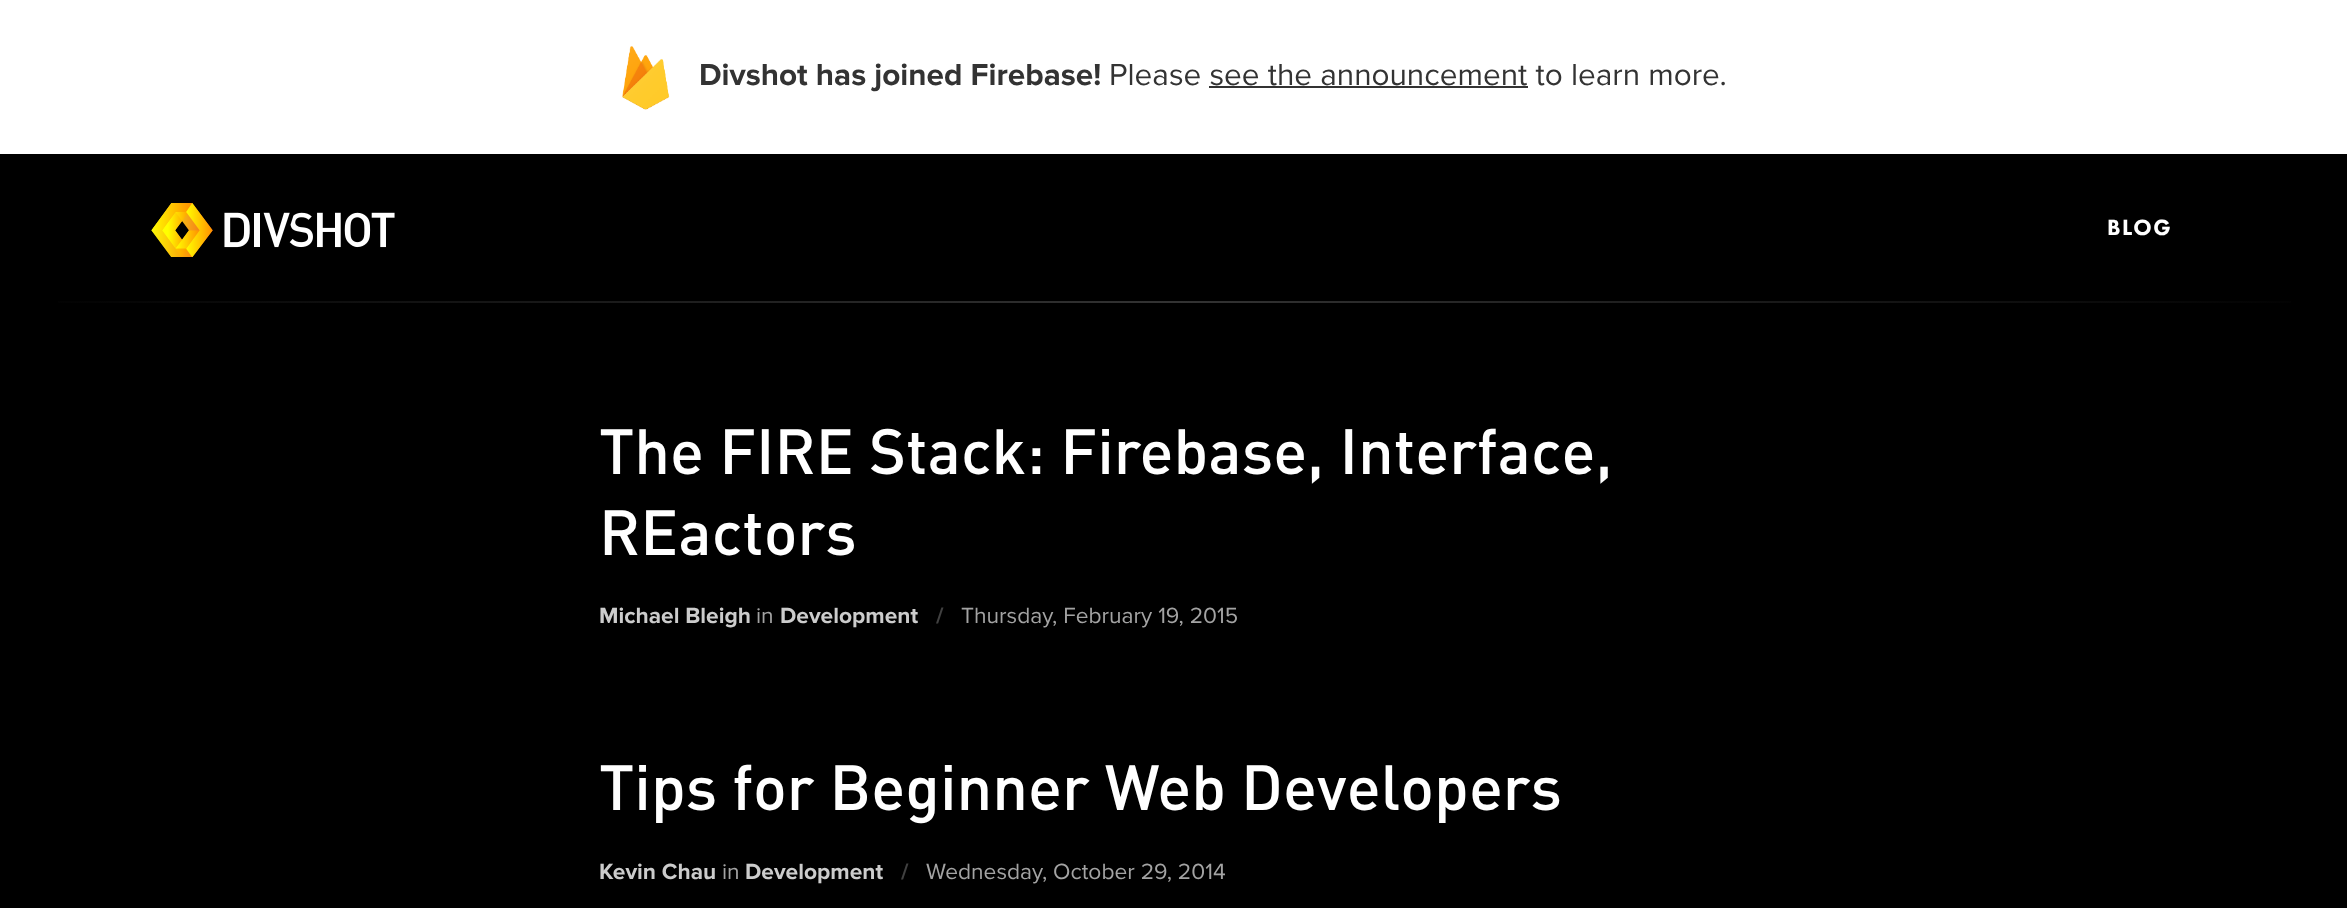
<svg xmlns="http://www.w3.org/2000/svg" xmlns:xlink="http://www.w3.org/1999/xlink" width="2347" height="908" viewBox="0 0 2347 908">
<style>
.cls-1{font:bold 31.5px Proxima Nova;fill:#333333}
.cls-2{font:31.5px Proxima Nova;fill:#333333}
.cls-3{font:900 22.75px Futura PT;letter-spacing:1.5px;fill:#ffffff}
.cls-4{font:500 63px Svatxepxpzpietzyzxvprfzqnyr;fill:#ffffff}
.cls-5{font:bold 22.75px Proxima Nova;fill:#cccccc}
.cls-6{font:22.75px Proxima Nova;fill:#a3a3a3}
.cls-7{font:bold 22.75px Proxima Nova;fill:#414141}
</style>
<defs>
<linearGradient id="g1" gradientUnits="userSpaceOnUse" x1="0" y1="302" x2="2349" y2="302"><stop offset="0" stop-color="#000000"/><stop offset="0.5" stop-color="#333333"/><stop offset="1" stop-color="#000000"/></linearGradient>
</defs>
<rect width="100%" height="100%" fill="#000000"/>
<rect fill="#ffffff" x="0" y="0" width="2347" height="154"/>
<image xlink:href="image0.png" x="622" y="46" width="48" height="64"/>
<rect fill="#333333" x="1209" y="86" width="319" height="2"/>
<image xlink:href="image1.png" x="151" y="203" width="244" height="54"/>
<rect fill="url(#g1)" x="58" y="301" width="2233" height="2"/>
<text class="cls-1" x="699" y="85">Divshot has joined Firebase!</text>
<text class="cls-2" x="1109" y="85">Please see the announcement to learn more.</text>
<text class="cls-3" x="2107" y="235">BLOG</text>
<text class="cls-4"><tspan x="599" y="474">The FIRE Stack: Firebase, Interface,</tspan><tspan x="599" y="555">REactors</tspan></text>
<text class="cls-5" x="599" y="623">Michael Bleigh</text>
<text class="cls-6" x="756" y="623">in</text>
<text class="cls-5" x="780" y="623">Development</text>
<text class="cls-7" x="936" y="623">/</text>
<text class="cls-6" x="961" y="623">Thursday, February 19, 2015</text>
<text class="cls-4" x="599" y="810">Tips for Beginner Web Developers</text>
<text class="cls-5" x="599" y="879">Kevin Chau</text>
<text class="cls-6" x="722" y="879">in</text>
<text class="cls-5" x="745" y="879">Development</text>
<text class="cls-7" x="901" y="879">/</text>
<text class="cls-6" x="926" y="879">Wednesday, October 29, 2014</text>
</svg>
